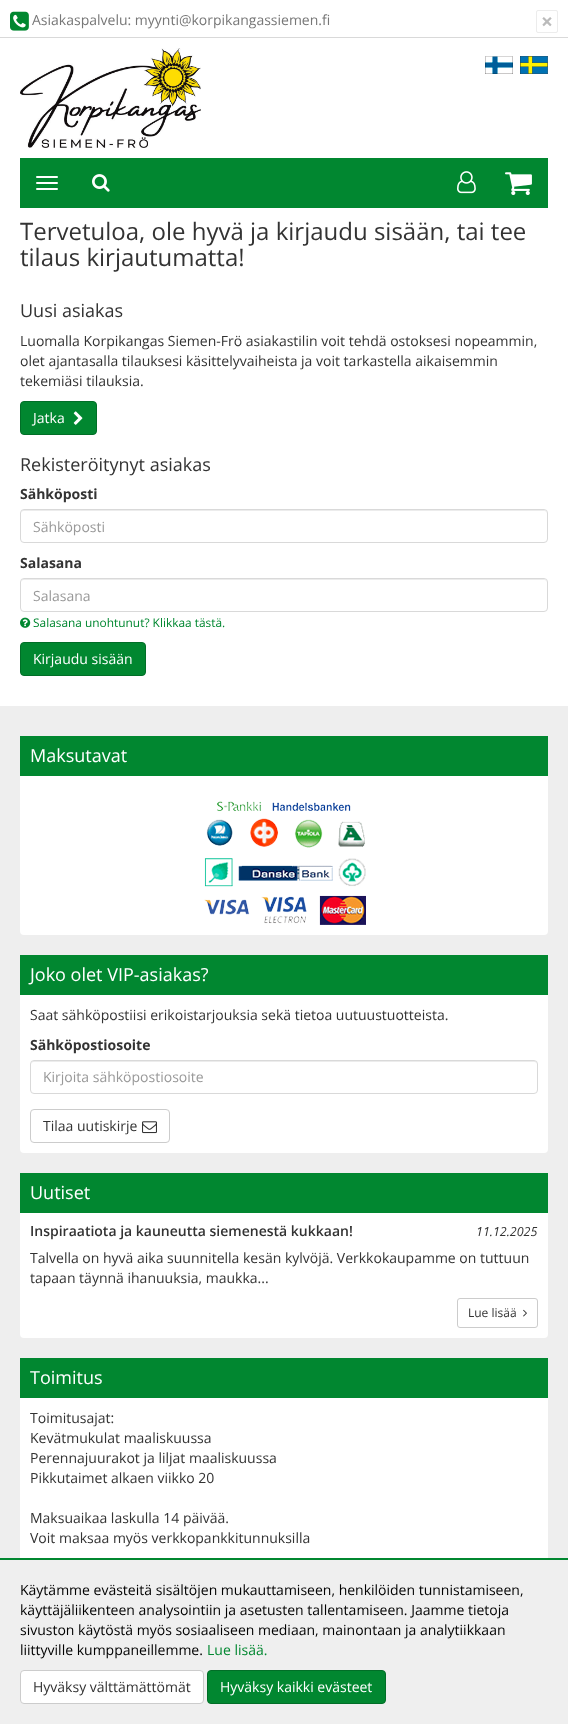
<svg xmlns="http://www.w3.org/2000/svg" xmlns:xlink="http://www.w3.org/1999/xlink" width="568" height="1724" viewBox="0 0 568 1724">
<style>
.cls-1{font:14px Open Sans;fill:#777777}
.cls-2{font:bold 21px Open Sans;fill:#bbbbbb}
.cls-3{font:24px Open Sans;fill:#333333}
.cls-4{font:18px Open Sans;fill:#333333}
.cls-5{font:14px Open Sans;fill:#333333}
.cls-6{font:14px Open Sans;fill:#ffffff}
.cls-7{font:bold 14px Open Sans;fill:#333333}
.cls-8{font:14px Open Sans;fill:#999999}
.cls-9{font:11.9px Open Sans;fill:#018730}
.cls-10{font:18px Open Sans;fill:#ffffff}
.cls-11{font:600 14px Open Sans;fill:#333333}
.cls-12{font:italic 12.5px Open Sans;fill:#333333}
.cls-13{font:12px Open Sans;fill:#333333}
.cls-14{font:14px Open Sans;fill:#000000}
.cls-15{font:14px Open Sans;fill:#018730}
</style>
<rect width="100%" height="100%" fill="#ffffff"/>
<rect fill="#d9d9d9" x="0" y="37" width="568" height="1"/>
<image xlink:href="image0.png" x="10" y="11" width="19" height="20"/>
<rect fill="none" stroke="#ececec" x="536.5" y="10.5" width="21" height="22" rx="1.5"/>
<image xlink:href="image1.png" x="20" y="48" width="181" height="100"/>
<image xlink:href="image2.png" x="485" y="56" width="28" height="18"/>
<image xlink:href="image3.png" x="520" y="56" width="28" height="18"/>
<rect fill="#018730" x="20" y="158" width="528" height="50"/>
<rect fill="#ffffff" x="36" y="176" width="22" height="2" rx="1"/>
<rect fill="#ffffff" x="36" y="182" width="22" height="2" rx="1"/>
<rect fill="#ffffff" x="36" y="188" width="22" height="2" rx="1"/>
<image xlink:href="image4.png" x="92" y="174" width="18" height="18"/>
<image xlink:href="image5.png" x="457" y="171" width="19" height="23"/>
<image xlink:href="image6.png" x="505" y="172" width="27" height="24"/>
<rect fill="#018730" stroke="#016e27" x="20.5" y="401.5" width="76" height="33" rx="3.5"/>
<image xlink:href="image7.png" x="73" y="411" width="10" height="14"/>
<path fill="#ececec" d="M24 511H544C546 511 547 512 547 514L546 511L544 510H24C22 510 21 512 21 514C21 512 22 511 24 511Z"/>
<rect fill="none" stroke="#d9d9d9" x="20.5" y="509.5" width="527" height="33" rx="3.5"/>
<path fill="#ececec" d="M24 580H544C546 580 547 581 547 583L546 580L544 579H24C22 579 21 581 21 583C21 581 22 580 24 580Z"/>
<rect fill="none" stroke="#d9d9d9" x="20.5" y="578.5" width="527" height="33" rx="3.5"/>
<image xlink:href="image8.png" x="20" y="617" width="11" height="11"/>
<rect fill="#018730" stroke="#016e27" x="20.5" y="642.5" width="125" height="33" rx="3.5"/>
<rect fill="#eeeeee" x="0" y="706" width="568" height="852"/>
<rect fill="#ffffff" x="20" y="736" width="528" height="199" rx="4"/>
<rect fill="#018730" x="20" y="736" width="528" height="40"/>
<image xlink:href="image9.png" x="204" y="801" width="162" height="124"/>
<rect fill="#ffffff" x="20" y="955" width="528" height="198" rx="4"/>
<rect fill="#018730" x="20" y="955" width="528" height="40"/>
<path fill="#ececec" d="M34 1062H534C536 1062 537 1063 537 1065C537 1063 536 1061 534 1061H34C32 1061 31 1063 31 1065C31 1063 32 1062 34 1062Z"/>
<rect fill="none" stroke="#d9d9d9" x="30.5" y="1060.5" width="507" height="33" rx="3.5"/>
<rect fill="none" stroke="#cccccc" x="30.5" y="1109.5" width="139" height="33" rx="3.5"/>
<image xlink:href="image10.png" x="142" y="1121" width="15" height="13"/>
<rect fill="#ffffff" x="20" y="1173" width="528" height="165" rx="4"/>
<rect fill="#018730" x="20" y="1173" width="528" height="40"/>
<rect fill="none" stroke="#cccccc" x="457.5" y="1298.5" width="80" height="29" rx="2.5"/>
<image xlink:href="image11.png" x="523" y="1309" width="4" height="8"/>
<rect fill="#ffffff" x="20" y="1398" width="528" height="160"/>
<rect fill="#018730" x="20" y="1358" width="528" height="40"/>
<rect fill="#efefef" x="0" y="1560" width="568" height="164"/>
<rect fill="#018730" x="0" y="1558" width="568" height="2"/>
<rect fill="#ffffff" stroke="#cccccc" x="20.5" y="1670.5" width="183" height="33" rx="3.5"/>
<rect fill="#018730" stroke="#016e27" x="207.5" y="1670.5" width="178" height="33" rx="3.5"/>
<text class="cls-1" x="32" y="25">Asiakaspalvelu: myynti@korpikangassiemen.fi</text>
<text class="cls-2" x="541" y="29">×</text>
<text class="cls-3"><tspan x="20" y="240">Tervetuloa, ole hyvä ja kirjaudu sisään, tai tee</tspan><tspan x="20" y="266">tilaus kirjautumatta!</tspan></text>
<text class="cls-4" x="20" y="317">Uusi asiakas</text>
<text class="cls-5"><tspan x="20" y="346">Luomalla Korpikangas Siemen-Frö asiakastilin voit tehdä ostoksesi nopeammin,</tspan><tspan x="20" y="366">olet ajantasalla tilauksesi käsittelyvaiheista ja voit tarkastella aikaisemmin</tspan><tspan x="20" y="386">tekemiäsi tilauksia.</tspan></text>
<text class="cls-6" x="33" y="423">Jatka</text>
<text class="cls-4" x="20" y="471">Rekisteröitynyt asiakas</text>
<text class="cls-7" x="20" y="499">Sähköposti</text>
<text class="cls-8" x="33" y="532">Sähköposti</text>
<text class="cls-7" x="20" y="568">Salasana</text>
<text class="cls-8" x="33" y="601">Salasana</text>
<text class="cls-9" x="33" y="627">Salasana unohtunut? Klikkaa tästä.</text>
<text class="cls-6" x="33" y="664">Kirjaudu sisään</text>
<text class="cls-10" x="30" y="762">Maksutavat</text>
<text class="cls-10" x="30" y="981">Joko olet VIP-asiakas?</text>
<text class="cls-5" x="30" y="1020">Saat sähköpostiisi erikoistarjouksia sekä tietoa uutuustuotteista.</text>
<text class="cls-7" x="30" y="1050">Sähköpostiosoite</text>
<text class="cls-8" x="43" y="1082">Kirjoita sähköpostiosoite</text>
<text class="cls-5" x="43" y="1131">Tilaa uutiskirje</text>
<text class="cls-10" x="30" y="1199">Uutiset</text>
<text class="cls-11" x="30" y="1236">Inspiraatiota ja kauneutta siemenestä kukkaan!</text>
<text class="cls-12" x="476" y="1236">11.12.2025</text>
<text class="cls-5"><tspan x="30" y="1263">Talvella on hyvä aika suunnitella kesän kylvöjä. Verkkokaupamme on tuttuun</tspan><tspan x="30" y="1283">tapaan täynnä ihanuuksia, maukka...</tspan></text>
<text class="cls-13" x="468" y="1317">Lue lisää</text>
<text class="cls-10" x="30" y="1384">Toimitus</text>
<text class="cls-5"><tspan x="30" y="1423">Toimitusajat:</tspan><tspan x="30" y="1443">Kevätmukulat maaliskuussa</tspan><tspan x="30" y="1463">Perennajuurakot ja liljat maaliskuussa</tspan><tspan x="30" y="1483">Pikkutaimet alkaen viikko 20</tspan></text>
<text class="cls-5"><tspan x="30" y="1523">Maksuaikaa laskulla 14 päivää.</tspan><tspan x="30" y="1543">Voit maksaa myös verkkopankkitunnuksilla</tspan></text>
<text class="cls-14"><tspan x="20" y="1595">Käytämme evästeitä sisältöjen mukauttamiseen, henkilöiden tunnistamiseen,</tspan><tspan x="20" y="1615">käyttäjäliikenteen analysointiin ja asetusten tallentamiseen. Jaamme tietoja</tspan><tspan x="20" y="1635">sivuston käytöstä myös sosiaaliseen mediaan, mainontaan ja analytiikkaan</tspan><tspan x="20" y="1655">liittyville kumppaneillemme.</tspan></text>
<text class="cls-15" x="207" y="1655">Lue lisää.</text>
<text class="cls-5" x="33" y="1692">Hyväksy välttämättömät</text>
<text class="cls-6" x="220" y="1692">Hyväksy kaikki evästeet</text>
</svg>
